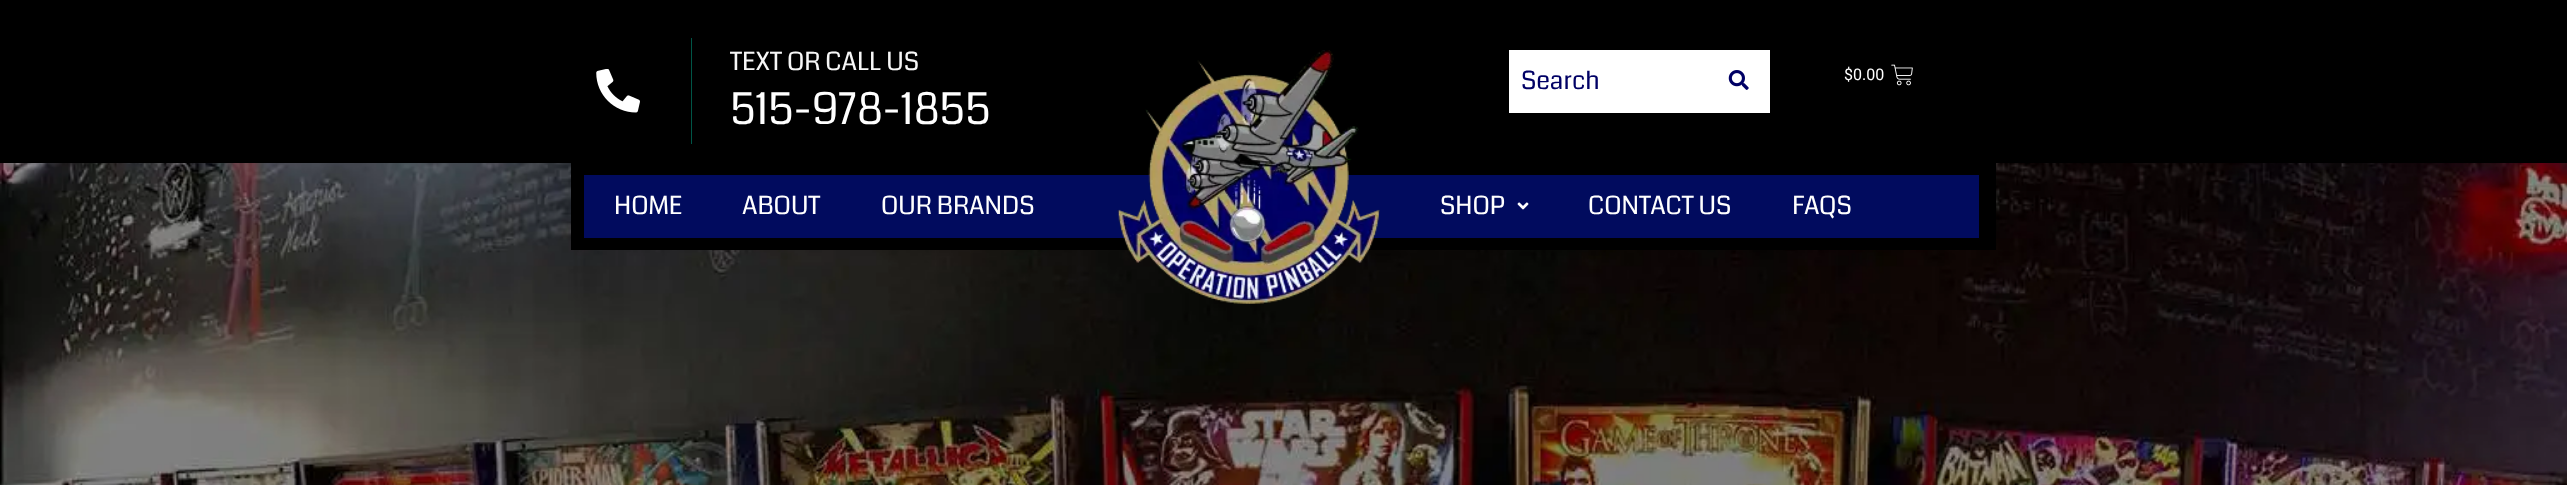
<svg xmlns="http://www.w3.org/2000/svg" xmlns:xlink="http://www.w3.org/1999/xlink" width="2567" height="485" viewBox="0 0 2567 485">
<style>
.cls-1{font:25px Coda;fill:#f7f7f7}
.cls-2{font:43.75px Coda;fill:#ffffff}
.cls-3{font:25px Coda;fill:#000065}
.cls-4{font:16px Roboto;fill:#ffffff}
.cls-5{font:25px Coda;fill:#ffffff}
</style>
<rect width="100%" height="100%" fill="#ffffff"/>
<rect fill="#000000" x="0" y="0" width="2567" height="163"/>
<rect fill="#005547" x="691" y="38" width="1" height="106"/>
<image xlink:href="image0.png" x="596" y="69" width="44" height="44"/>
<rect fill="#ffffff" x="1509" y="50" width="261" height="63"/>
<image xlink:href="image1.png" x="1728" y="70" width="21" height="20"/>
<image xlink:href="image2.png" x="1891" y="64" width="22" height="22"/>
<image xlink:href="image3.png" x="0" y="163" width="2567" height="322"/>
<rect fill="#000000" x="571" y="163" width="1425" height="87"/>
<rect fill="#010b5e" x="584" y="175" width="1395" height="63"/>
<image xlink:href="image4.png" x="1117" y="50" width="263" height="254"/>
<image xlink:href="image5.png" x="1517" y="202" width="12" height="8"/>
<text class="cls-1" x="730" y="70">TEXT OR CALL US</text>
<text class="cls-2" x="730" y="124">515-978-1855</text>
<text class="cls-3" x="1521" y="89">Search</text>
<text class="cls-4" x="1844" y="80">$0.00</text>
<text class="cls-5" x="614" y="214">HOME</text>
<text class="cls-5" x="742" y="214">ABOUT</text>
<text class="cls-5" x="881" y="214">OUR BRANDS</text>
<text class="cls-5" x="1440" y="214">SHOP</text>
<text class="cls-5" x="1588" y="214">CONTACT US</text>
<text class="cls-5" x="1792" y="214">FAQS</text>
</svg>
